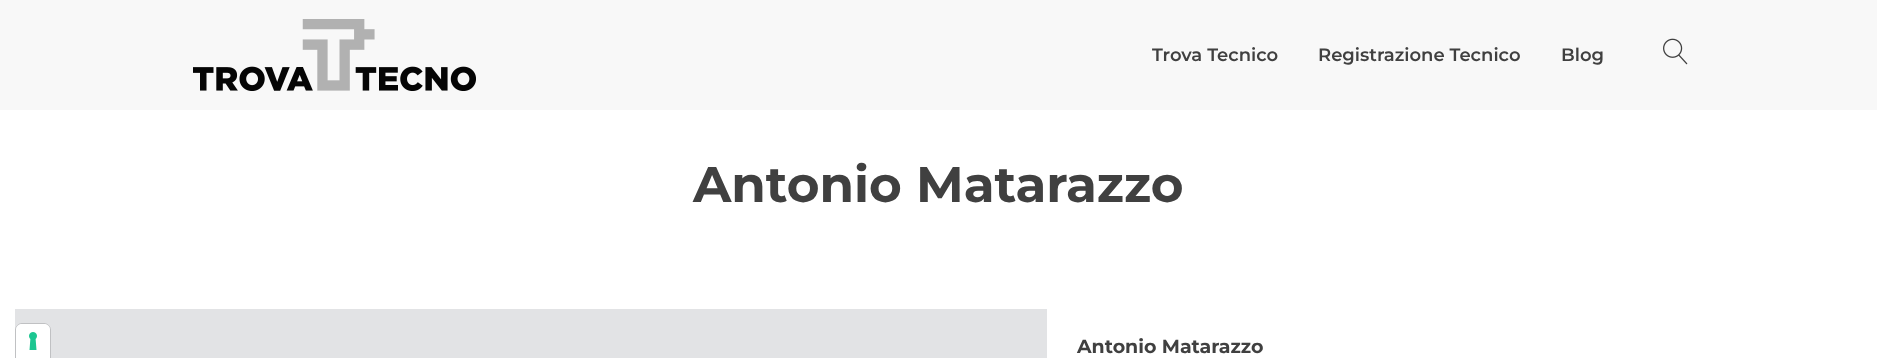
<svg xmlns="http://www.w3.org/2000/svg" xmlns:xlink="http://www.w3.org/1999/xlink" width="1877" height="358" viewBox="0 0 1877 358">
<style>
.cls-1{font:600 18px Montserrat;fill:#404040}
.cls-2{font:bold 50px Montserrat;fill:#404040}
.cls-3{font:bold 19px Montserrat;fill:#404040}
</style>
<rect width="100%" height="100%" fill="#ffffff"/>
<rect fill="#e2e3e5" x="15" y="309" width="1032" height="49"/>
<path fill="none" stroke="#c0c1c3" d="M22 323.5H44C47.5 323.5 50.5 326.5 50.5 330V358.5H15.5V330C15.5 326.5 18.5 323.5 22 323.5Z"/>
<path fill="#ffffff" d="M22 324H44C47.5 324 50 326.5 50 330V358H16V330C16 326.5 18.5 324 22 324Z"/>
<image xlink:href="image0.png" x="29" y="332" width="8" height="18"/>
<rect fill="#f8f8f8" x="0" y="0" width="1877" height="110"/>
<image xlink:href="image1.png" x="193" y="19" width="283" height="72"/>
<image xlink:href="image2.png" x="1663" y="38" width="25" height="27"/>
<text class="cls-1" x="1152" y="61">Trova Tecnico</text>
<text class="cls-1" x="1318" y="61">Registrazione Tecnico</text>
<text class="cls-1" x="1561" y="61">Blog</text>
<text class="cls-2" x="693" y="202">Antonio Matarazzo</text>
<text class="cls-3" x="1077" y="353">Antonio Matarazzo</text>
</svg>
